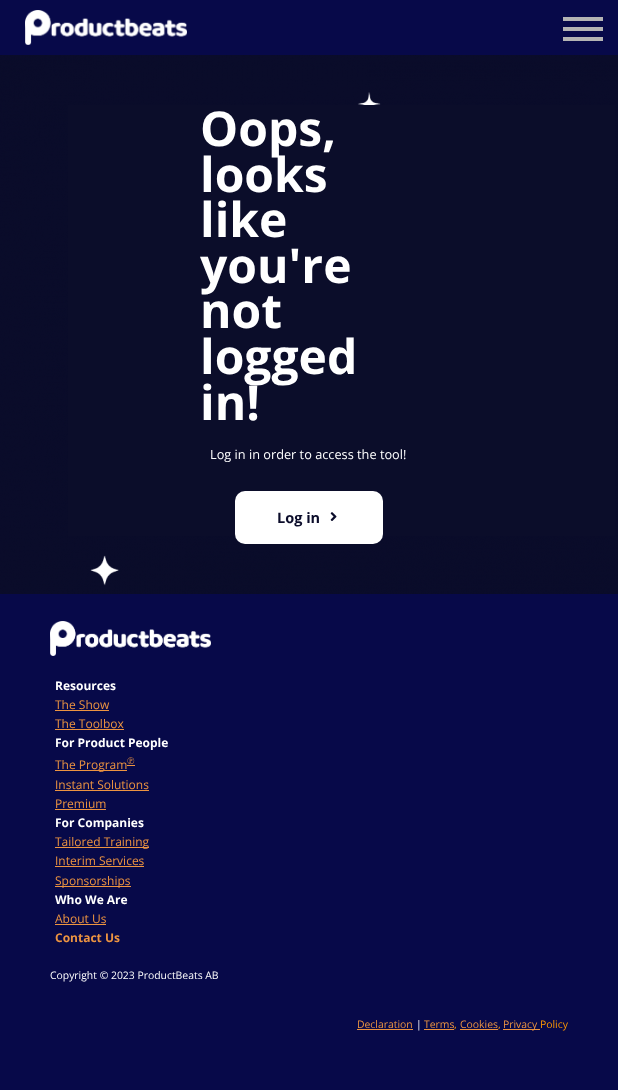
<svg xmlns="http://www.w3.org/2000/svg" xmlns:xlink="http://www.w3.org/1999/xlink" width="618" height="1090" viewBox="0 0 618 1090">
<style>
.cls-1{font:bold 48px Open Sans;fill:#ffffff}
.cls-2{font:12.75px Open Sans;fill:#ffffff}
.cls-3{font:bold 14.5px Open Sans;fill:#0b0c2a}
.cls-4{font:bold 12px Open Sans;fill:#ffffff}
.cls-5{font:12px Open Sans;fill:#ed9441}
.cls-6{font:10px Liberation Serif;fill:#ed9441}
.cls-7{font:bold 12px Open Sans;fill:#ed9441}
.cls-8{font:10.4px Open Sans;fill:#ffffff}
.cls-9{font:10.4px Open Sans;fill:#ed9441}
.cls-10{font:10.4px Open Sans;fill:#ff9800}
</style>
<rect width="100%" height="100%" fill="#ffffff"/>
<rect fill="#070949" x="0" y="0" width="618" height="55"/>
<image xlink:href="image0.png" x="25" y="10" width="162" height="35"/>
<rect fill="#b4b4b4" x="563" y="37" width="40" height="4"/>
<rect fill="#b4b4b4" x="563" y="17" width="40" height="4"/>
<rect fill="#b4b4b4" x="563" y="27" width="40" height="4"/>
<image xlink:href="image1.png" x="0" y="55" width="618" height="539"/>
<rect fill="#0b0d2a" x="68" y="105" width="547" height="431"/>
<rect fill="#ffffff" x="235" y="491" width="148" height="53" rx="10"/>
<image xlink:href="image2.png" x="330" y="512" width="7" height="9"/>
<rect fill="#070949" x="0" y="594" width="618" height="496"/>
<image xlink:href="image3.png" x="50" y="621" width="161" height="35"/>
<rect fill="#ed9441" x="55" y="710" width="54" height="1"/>
<rect fill="#ed9441" x="55" y="729" width="69" height="1"/>
<rect fill="#ed9441" x="55" y="770" width="72" height="1"/>
<rect fill="#ed9441" x="127" y="765" width="8" height="1"/>
<rect fill="#ed9441" x="55" y="790" width="94" height="1"/>
<rect fill="#ed9441" x="55" y="809" width="51" height="1"/>
<rect fill="#ed9441" x="55" y="847" width="94" height="1"/>
<rect fill="#ed9441" x="55" y="866" width="89" height="1"/>
<rect fill="#ed9441" x="55" y="886" width="76" height="1"/>
<rect fill="#ed9441" x="55" y="924" width="51" height="1"/>
<rect fill="#ed9441" x="357" y="1029" width="56" height="1"/>
<rect fill="#ed9441" x="424" y="1029" width="30" height="1"/>
<rect fill="#ed9441" x="460" y="1029" width="38" height="1"/>
<rect fill="#ed9441" x="503" y="1029" width="37" height="1"/>
<text class="cls-1"><tspan x="200" y="146">Oops,</tspan><tspan x="200" y="192">looks</tspan><tspan x="200" y="237">like</tspan><tspan x="200" y="283">you're</tspan><tspan x="200" y="328">not</tspan><tspan x="200" y="374">logged</tspan><tspan x="200" y="420">in!</tspan></text>
<text class="cls-2" x="210" y="459">Log in in order to access the tool!</text>
<text class="cls-3" x="277" y="523">Log in</text>
<text class="cls-4" x="55" y="690">Resources</text>
<text class="cls-5"><tspan x="55" y="709">The Show</tspan><tspan x="55" y="728">The Toolbox</tspan></text>
<text class="cls-4" x="55" y="747">For Product People</text>
<text class="cls-5" x="55" y="769">The Program</text>
<text class="cls-6" x="127" y="764">℗</text>
<text class="cls-5"><tspan x="55" y="789">Instant Solutions</tspan><tspan x="55" y="808">Premium</tspan></text>
<text class="cls-4" x="55" y="827">For Companies</text>
<text class="cls-5"><tspan x="55" y="846">Tailored Training</tspan><tspan x="55" y="865">Interim Services</tspan><tspan x="55" y="885">Sponsorships</tspan></text>
<text class="cls-4" x="55" y="904">Who We Are</text>
<text class="cls-5" x="55" y="923">About Us</text>
<text class="cls-7" x="55" y="942">Contact Us</text>
<text class="cls-8" x="50" y="979">Copyright © 2023 ProductBeats AB</text>
<text class="cls-9" x="357" y="1028">Declaration</text>
<text class="cls-8" x="416" y="1028">|</text>
<text class="cls-9" x="424" y="1028">Terms</text>
<text class="cls-10" x="454" y="1028">,</text>
<text class="cls-9" x="460" y="1028">Cookies</text>
<text class="cls-10" x="498" y="1028">,</text>
<text class="cls-9" x="503" y="1028">Privacy</text>
<text class="cls-10" x="540" y="1028">Policy</text>
</svg>
